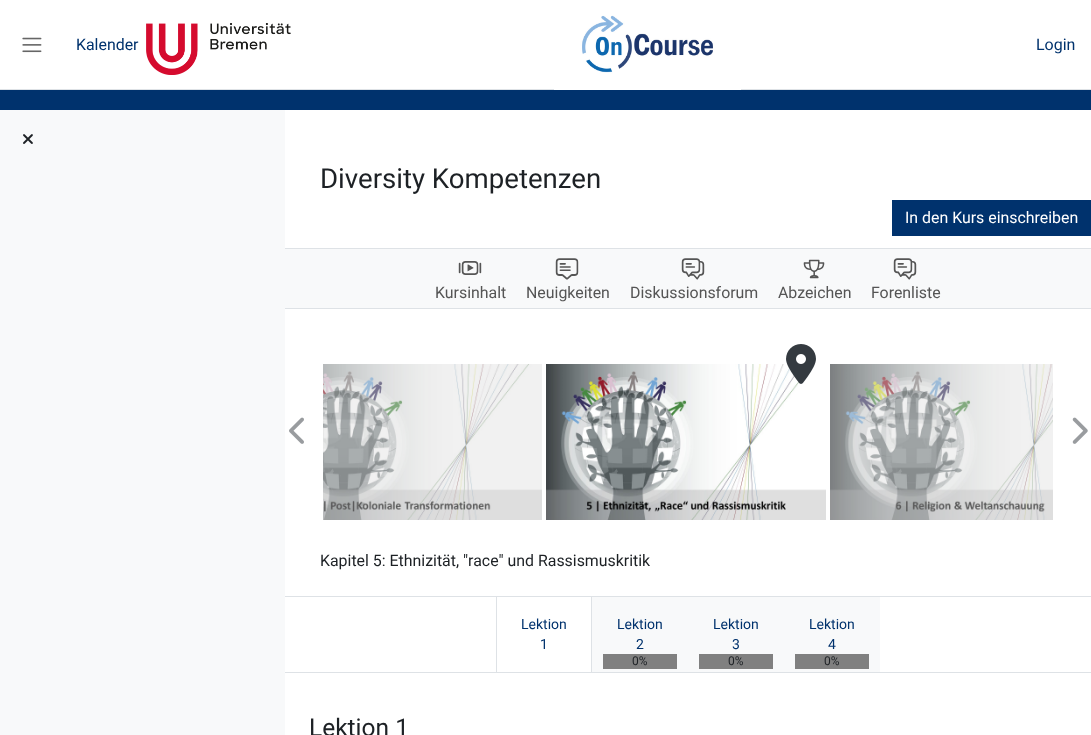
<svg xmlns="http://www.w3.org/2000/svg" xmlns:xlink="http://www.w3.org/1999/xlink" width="1091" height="735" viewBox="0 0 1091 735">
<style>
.cls-1{font:15.9px Roboto;fill:#00326d}
.cls-2{font:16px Roboto;fill:#00326d}
.cls-3{font:27.6px Roboto;fill:#1d2125}
.cls-4{font:15.9px Roboto;fill:#ffffff}
.cls-5{font:15.9px Roboto;fill:#555555}
.cls-6{font:15.9px Roboto;fill:#1d2125}
.cls-7{font:14px Roboto;fill:#00326d}
.cls-8{font:12px Roboto;fill:#1d2125}
.cls-9{font:24.5px Roboto;fill:#1d2125}
</style>
<rect width="100%" height="100%" fill="#ffffff"/>
<rect fill="#dee2e6" x="0" y="89" width="1091" height="1"/>
<image xlink:href="image0.png" x="22" y="37" width="20" height="16"/>
<image xlink:href="image1.png" x="146" y="23" width="145" height="52"/>
<image xlink:href="image2.png" x="554" y="15" width="187" height="75"/>
<rect fill="#f8f9fa" x="0" y="110" width="285" height="625"/>
<image xlink:href="image3.png" x="23" y="134" width="10" height="10"/>
<rect fill="#00326d" x="0" y="90" width="1091" height="20"/>
<rect fill="#00326d" x="892" y="200" width="199" height="36"/>
<rect fill="#f8f9fa" x="285" y="249" width="806" height="59"/>
<rect fill="#dee2e6" x="285" y="248" width="806" height="1"/>
<rect fill="#dee2e6" x="285" y="308" width="806" height="1"/>
<image xlink:href="image4.png" x="458" y="261" width="24" height="14"/>
<image xlink:href="image5.png" x="555" y="258" width="24" height="22"/>
<image xlink:href="image6.png" x="681" y="258" width="24" height="22"/>
<image xlink:href="image7.png" x="803" y="259" width="22" height="20"/>
<image xlink:href="image6.png" x="893" y="258" width="24" height="22"/>
<image xlink:href="image8.png" x="289" y="417" width="15" height="27"/>
<rect fill="#dddddd" x="323" y="364" width="219" height="156"/>
<image xlink:href="image9.png" x="323" y="364" width="219" height="156"/>
<image xlink:href="image11.png" x="546" y="364" width="280" height="156"/>
<image xlink:href="image10.png" x="786" y="344" width="30" height="40"/>
<rect fill="#dddddd" x="830" y="364" width="223" height="156"/>
<image xlink:href="image12.png" x="830" y="364" width="223" height="156"/>
<image xlink:href="image13.png" x="1072" y="417" width="16" height="27"/>
<rect fill="#dee2e6" x="285" y="596" width="806" height="1"/>
<rect fill="#dee2e6" x="285" y="672" width="806" height="1"/>
<rect fill="#dee2e6" x="591" y="597" width="1" height="75"/>
<rect fill="#dee2e6" x="496" y="597" width="1" height="75"/>
<rect fill="#f8f9fa" x="592" y="597" width="96" height="75"/>
<rect fill="#808080" x="603" y="654" width="74" height="15"/>
<rect fill="#f8f9fa" x="688" y="597" width="96" height="75"/>
<rect fill="#808080" x="699" y="654" width="74" height="15"/>
<rect fill="#f8f9fa" x="784" y="597" width="96" height="75"/>
<rect fill="#808080" x="795" y="654" width="74" height="15"/>
<text class="cls-1" x="76" y="50">Kalender</text>
<text class="cls-2" x="1036" y="50">Login</text>
<text class="cls-3" x="320" y="188">Diversity Kompetenzen</text>
<text class="cls-4" x="905" y="223">In den Kurs einschreiben</text>
<text class="cls-5" x="435" y="298">Kursinhalt</text>
<text class="cls-5" x="526" y="298">Neuigkeiten</text>
<text class="cls-5" x="630" y="298">Diskussionsforum</text>
<text class="cls-5" x="778" y="298">Abzeichen</text>
<text class="cls-5" x="871" y="298">Forenliste</text>
<text class="cls-6" x="320" y="566">Kapitel 5: Ethnizität, "race" und Rassismuskritik</text>
<text class="cls-7" x="521" y="629">Lektion</text>
<text class="cls-7" x="540" y="649">1</text>
<text class="cls-7" x="617" y="629">Lektion</text>
<text class="cls-7" x="636" y="649">2</text>
<text class="cls-8" x="632" y="665">0%</text>
<text class="cls-7" x="713" y="629">Lektion</text>
<text class="cls-7" x="732" y="649">3</text>
<text class="cls-8" x="728" y="665">0%</text>
<text class="cls-7" x="809" y="629">Lektion</text>
<text class="cls-7" x="828" y="649">4</text>
<text class="cls-8" x="824" y="665">0%</text>
<text class="cls-9" x="309" y="736">Lektion 1</text>
</svg>
